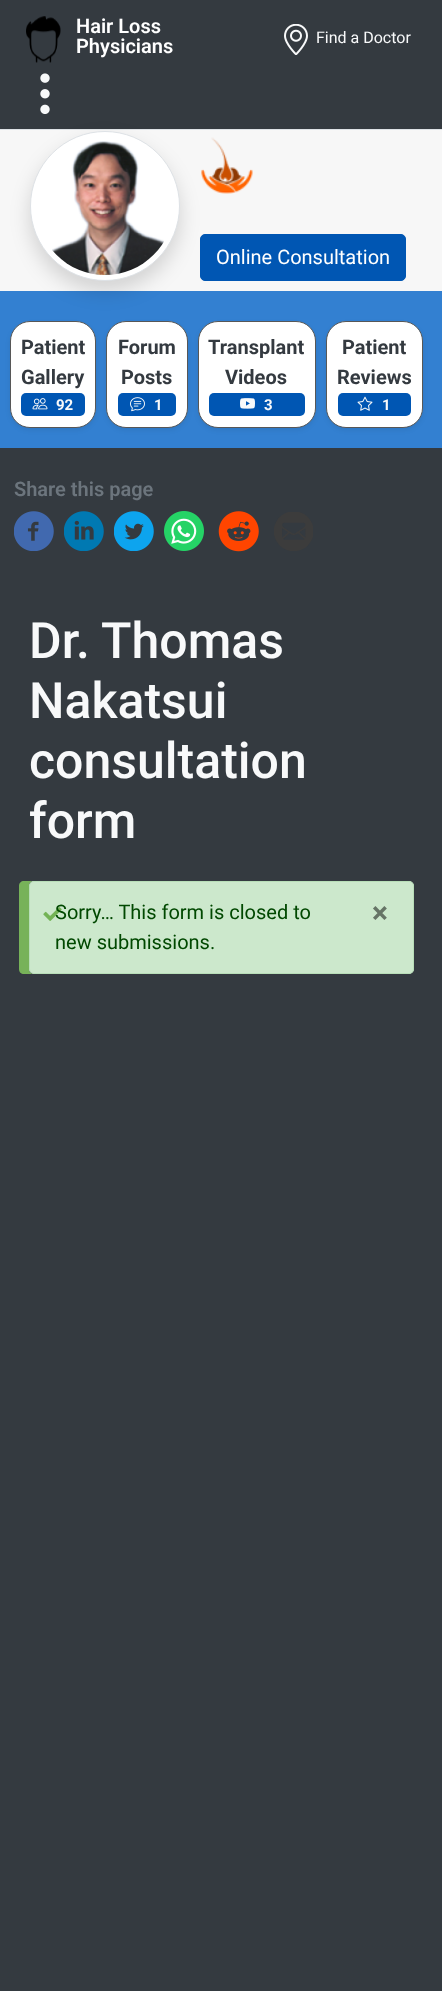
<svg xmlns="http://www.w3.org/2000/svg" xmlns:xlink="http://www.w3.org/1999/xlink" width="442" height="1991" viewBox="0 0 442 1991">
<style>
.cls-1{font:600 20px Roboto;fill:#ffffff}
.cls-2{font:16px Roboto;fill:#f8f9fa}
.cls-3{font:20px Roboto;fill:#ffffff}
.cls-4{font:bold 20px Roboto;fill:#343a40}
.cls-5{font:bold 15px Roboto;fill:#f8f9fa}
.cls-6{font:600 20px Roboto;fill:#6c757d}
.cls-7{font:500 50px Roboto;fill:#f8f9fa}
.cls-8{font:20px Roboto;fill:#004800}
.cls-9{font:bold 30px Roboto;fill:#667466}
</style>
<rect width="100%" height="100%" fill="#343a40"/>
<rect fill="#3380d1" x="0" y="291" width="442" height="157"/>
<rect fill="#f7f7f7" x="0" y="130" width="442" height="161"/>
<rect fill="#000000" fill-opacity="0.15" filter="blur(10px)" x="30" y="141" width="150" height="150" rx="75"/>
<rect fill="#dee2e6" x="0" y="129" width="442" height="1"/>
<image xlink:href="image0.png" x="26" y="16" width="35" height="47"/>
<image xlink:href="image1.png" x="284" y="24" width="24" height="31"/>
<image xlink:href="image2.png" x="40" y="73" width="10" height="41"/>
<circle fill="#ffffff" stroke="#dee2e6" cx="105" cy="206" r="74.5"/>
<image xlink:href="image3.png" x="52" y="141" width="112" height="134"/>
<image xlink:href="image4.png" x="201" y="137" width="52" height="57"/>
<rect fill="#0056b3" stroke="#0056b3" x="200.5" y="234.5" width="205" height="46" rx="4.5"/>
<rect fill="#000000" fill-opacity="0.07" filter="blur(2.5px)" x="10" y="324" width="86" height="106" rx="20"/>
<rect fill="#ffffff" stroke="#575757" x="10.5" y="321.5" width="85" height="106" rx="19.5"/>
<rect fill="#0056b3" x="21" y="393" width="64" height="23" rx="5"/>
<image xlink:href="image5.png" x="32" y="398" width="16" height="12"/>
<rect fill="#000000" fill-opacity="0.07" filter="blur(2.5px)" x="106" y="324" width="82" height="106" rx="20"/>
<rect fill="#ffffff" stroke="#575757" x="106.5" y="321.5" width="81" height="106" rx="19.5"/>
<rect fill="#0056b3" x="118" y="393" width="58" height="23" rx="5"/>
<image xlink:href="image6.png" x="130" y="397" width="15" height="15"/>
<rect fill="#000000" fill-opacity="0.07" filter="blur(2.5px)" x="198" y="324" width="118" height="106" rx="20"/>
<rect fill="#ffffff" stroke="#575757" x="198.5" y="321.5" width="117" height="106" rx="19.5"/>
<rect fill="#0056b3" x="209" y="393" width="96" height="23" rx="5"/>
<image xlink:href="image7.png" x="240" y="398" width="15" height="11"/>
<rect fill="#000000" fill-opacity="0.07" filter="blur(2.5px)" x="326" y="324" width="97" height="106" rx="20"/>
<rect fill="#ffffff" stroke="#575757" x="326.5" y="321.5" width="96" height="106" rx="19.5"/>
<rect fill="#0056b3" x="338" y="393" width="73" height="23" rx="5"/>
<image xlink:href="image8.png" x="357" y="396" width="16" height="15"/>
<image xlink:href="image9.png" x="14" y="511" width="40" height="40"/>
<image xlink:href="image10.png" x="64" y="511" width="40" height="40"/>
<image xlink:href="image11.png" x="114" y="511" width="40" height="40"/>
<image xlink:href="image12.png" x="164" y="511" width="40" height="40"/>
<image xlink:href="image13.png" x="218" y="511" width="41" height="41"/>
<image xlink:href="image14.png" x="274" y="512" width="39" height="39"/>
<path fill="#77b259" d="M24 881C21 881 19 883 19 886V969C19 972 21 974 24 974H401H34C31 974 29 972 29 969V886C29 883 31 881 34 881H401H399Z"/>
<rect fill="#cce8cc" x="29" y="881" width="385" height="93" rx="5"/>
<image xlink:href="image15.png" x="43" y="907" width="19" height="14"/>
<rect fill="none" stroke="#b8deb8" x="29.5" y="881.5" width="384" height="92" rx="4.5"/>
<text class="cls-1"><tspan x="76" y="33">Hair Loss</tspan><tspan x="76" y="53">Physicians</tspan></text>
<text class="cls-2" x="316" y="43">Find a Doctor</text>
<text class="cls-3" x="216" y="264">Online Consultation</text>
<text class="cls-4"><tspan x="21" y="354">Patient</tspan><tspan x="21" y="384">Gallery</tspan></text>
<text class="cls-5" x="56" y="410">92</text>
<text class="cls-4" x="118" y="354">Forum</text>
<text class="cls-4" x="121" y="384">Posts</text>
<text class="cls-5" x="154" y="410">1</text>
<text class="cls-4" x="208" y="354">Transplant</text>
<text class="cls-4" x="225" y="384">Videos</text>
<text class="cls-5" x="264" y="410">3</text>
<text class="cls-4" x="342" y="354">Patient</text>
<text class="cls-4" x="337" y="384">Reviews</text>
<text class="cls-5" x="382" y="410">1</text>
<text class="cls-6" x="14" y="496">Share this page</text>
<text class="cls-7"><tspan x="29" y="658">Dr. Thomas</tspan><tspan x="29" y="718">Nakatsui</tspan><tspan x="29" y="778">consultation</tspan><tspan x="29" y="838">form</tspan></text>
<text class="cls-8" x="55" y="919">Sorry… This form is closed to</text>
<text class="cls-9" x="372" y="923">×</text>
<text class="cls-8" x="55" y="949">new submissions.</text>
</svg>
